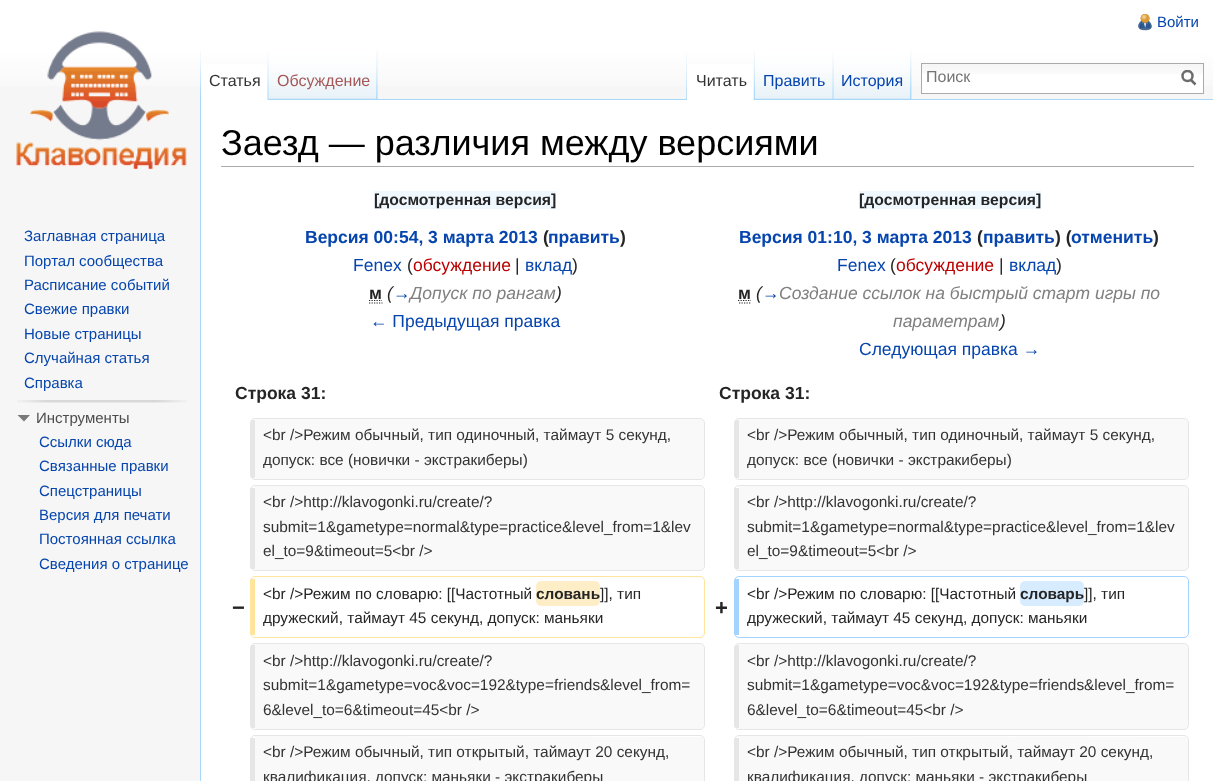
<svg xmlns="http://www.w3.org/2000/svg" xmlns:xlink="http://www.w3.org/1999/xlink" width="1213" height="781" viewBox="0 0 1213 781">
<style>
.cls-1{font:15px Liberation Sans;fill:#0645ad}
.cls-2{font:16px Liberation Sans;fill:#333333}
.cls-3{font:16px Liberation Sans;fill:#a55858}
.cls-4{font:16px Liberation Sans;fill:#0645ad}
.cls-5{font:16px Liberation Sans;fill:#757575}
.cls-6{font:15px Liberation Sans;fill:#4d4d4d}
.cls-7{font:36px Liberation Sans;fill:#000000}
.cls-8{font:bold 15.75px Liberation Sans;fill:#252525}
.cls-9{font:bold 17.5px Liberation Sans;fill:#0645ad}
.cls-10{font:bold 17.5px Liberation Sans;fill:#252525}
.cls-11{font:17.5px Liberation Sans;fill:#0645ad}
.cls-12{font:17.5px Liberation Sans;fill:#252525}
.cls-13{font:17.5px Liberation Sans;fill:#ba0000}
.cls-14{font:italic 17.5px Liberation Sans;fill:#252525}
.cls-15{font:italic 17.5px Liberation Sans;fill:#0645ad}
.cls-16{font:italic 17.5px Liberation Sans;fill:#808080}
.cls-17{font:15.4px Liberation Sans;fill:#333333}
.cls-18{font:bold 22px Liberation Sans;fill:#252525}
.cls-19{font:15.4px Liberation Sans;fill:#252525}
.cls-20{font:bold 15.4px Liberation Sans;fill:#252525}
</style>
<defs>
<linearGradient id="g1" gradientUnits="userSpaceOnUse" x1="607" y1="0" x2="607" y2="100"><stop offset="0.5" stop-color="#ffffff"/><stop offset="1" stop-color="#f6f6f6"/></linearGradient>
<clipPath id="clip1"><rect x="1181" y="70" width="15" height="16"/></clipPath>
</defs>
<rect width="100%" height="100%" fill="#f6f6f6"/>
<rect fill="url(#g1)" x="0" y="0" width="1213" height="86"/>
<image xlink:href="image0.png" x="1138" y="14" width="14" height="17"/>
<image xlink:href="image1.png" x="200" y="50" width="1" height="49"/>
<rect fill="#ffffff" x="201" y="64" width="68" height="36"/>
<image xlink:href="image2.png" x="267" y="52" width="2" height="48"/>
<rect fill="#f3f3f3" x="377" y="50" width="1" height="50"/>
<image xlink:href="image3.png" x="268" y="50" width="110" height="50"/>
<image xlink:href="image4.png" x="376" y="52" width="2" height="48"/>
<image xlink:href="image5.png" x="686" y="52" width="1" height="47"/>
<image xlink:href="image6.png" x="911" y="50" width="1" height="49"/>
<rect fill="#a7d7f9" x="378" y="99" width="835" height="1"/>
<rect fill="#ffffff" x="687" y="64" width="67" height="36"/>
<image xlink:href="image7.png" x="753" y="50" width="2" height="50"/>
<image xlink:href="image8.png" x="755" y="50" width="79" height="50"/>
<image xlink:href="image9.png" x="832" y="53" width="2" height="47"/>
<image xlink:href="image10.png" x="833" y="50" width="78" height="50"/>
<image xlink:href="image11.png" x="910" y="50" width="2" height="49"/>
<rect fill="#ffffff" x="922" y="74" width="281" height="19"/>
<image xlink:href="image12.png" x="922" y="64" width="281" height="10"/>
<rect fill="none" stroke="#aaaaaa" x="921.5" y="63.5" width="282" height="30"/>
<path fill="none" stroke="#6c6c6c" stroke-width="2.5" d="M1195.5 84.5L1190.5 79.5"/>
<g clip-path="url(#clip1)">
<circle fill="none" stroke="#6c6c6c" stroke-width="2.5" cx="1187.5" cy="76" r="5"/>
</g>
<image xlink:href="image13.png" x="16" y="31" width="171" height="139"/>
<image xlink:href="image14.png" x="17" y="400" width="170" height="3"/>
<path fill="#797979" d="M30 415L24 421.5L17.5 415Z"/>
<rect fill="#ffffff" x="201" y="100" width="1012" height="681"/>
<rect fill="#a7d7f9" x="200" y="99" width="1" height="682"/>
<rect fill="#aaaaaa" x="221" y="166" width="973" height="1"/>
<rect fill="#f0f8ff" x="374" y="191" width="182" height="18"/>
<rect fill="#f0f8ff" x="859" y="191" width="182" height="18"/>
<path fill="none" stroke="#252525" stroke-width="1.2" stroke-dasharray="1.25 1.25" d="M369 303H382.5M369 300.5H382"/>
<path fill="none" stroke="#252525" stroke-width="1.2" stroke-dasharray="1.25 1.25" d="M739 303H751M738 300.5H751"/>
<path fill="#f9f9f9" d="M255 419H700C702 419 704 420 704 423V475C704 477 702 479 700 479H255Z"/>
<rect fill="none" stroke="#e6e6e6" x="250.5" y="418.5" width="454" height="61" rx="4.5"/>
<rect fill="#e6e6e6" x="251" y="420" width="4" height="58"/>
<path fill="#f9f9f9" d="M739 419H1184C1186 419 1188 420 1188 423V475C1188 477 1186 479 1184 479H739Z"/>
<rect fill="none" stroke="#e6e6e6" x="734.5" y="418.5" width="454" height="61" rx="4.5"/>
<rect fill="#e6e6e6" x="735" y="420" width="4" height="58"/>
<path fill="#f9f9f9" d="M255 486H700C702 486 704 488 704 490V566C704 568 702 570 700 570H255Z"/>
<rect fill="none" stroke="#e6e6e6" x="250.5" y="485.5" width="454" height="85" rx="4.5"/>
<rect fill="#e6e6e6" x="251" y="488" width="4" height="81"/>
<path fill="#f9f9f9" d="M739 486H1184C1186 486 1188 488 1188 490V566C1188 568 1186 570 1184 570H739Z"/>
<rect fill="none" stroke="#e6e6e6" x="734.5" y="485.5" width="454" height="85" rx="4.5"/>
<rect fill="#e6e6e6" x="735" y="488" width="4" height="81"/>
<rect fill="none" stroke="#ffe49c" x="250.5" y="576.5" width="454" height="61" rx="4.5"/>
<rect fill="#ffe49c" x="251" y="579" width="4" height="56"/>
<rect fill="#feeec8" x="536" y="581" width="64" height="25" rx="5"/>
<rect fill="none" stroke="#a3d3ff" x="734.5" y="576.5" width="454" height="61" rx="4.5"/>
<rect fill="#a3d3ff" x="735" y="579" width="4" height="56"/>
<rect fill="#d8ecff" x="1020" y="581" width="64" height="25" rx="5"/>
<path fill="#f9f9f9" d="M255 644H700C702 644 704 645 704 648V725C704 727 702 729 700 729H255Z"/>
<rect fill="none" stroke="#e6e6e6" x="250.5" y="643.5" width="454" height="86" rx="4.5"/>
<rect fill="#e6e6e6" x="251" y="645" width="4" height="83"/>
<path fill="#f9f9f9" d="M739 644H1184C1186 644 1188 645 1188 648V725C1188 727 1186 729 1184 729H739Z"/>
<rect fill="none" stroke="#e6e6e6" x="734.5" y="643.5" width="454" height="86" rx="4.5"/>
<rect fill="#e6e6e6" x="735" y="645" width="4" height="83"/>
<path fill="#f9f9f9" d="M255 736L701 737C706 738 704 746 704 749V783C704 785 706 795 700 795H255Z"/>
<rect fill="none" stroke="#e6e6e6" x="250.5" y="735.5" width="454" height="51" rx="4.5"/>
<rect fill="#e6e6e6" x="251" y="738" width="4" height="43"/>
<path fill="#f9f9f9" d="M739 736L1185 737C1189 738 1188 746 1188 749V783C1188 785 1189 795 1184 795H739Z"/>
<rect fill="none" stroke="#e6e6e6" x="734.5" y="735.5" width="454" height="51" rx="4.5"/>
<rect fill="#e6e6e6" x="735" y="738" width="4" height="43"/>
<text class="cls-1" x="1157" y="27">Войти</text>
<text class="cls-2" x="209" y="86">Статья</text>
<text class="cls-3" x="277" y="86">Обсуждение</text>
<text class="cls-2" x="696" y="86">Читать</text>
<text class="cls-4" x="763" y="86">Править</text>
<text class="cls-4" x="841" y="86">История</text>
<text class="cls-5" x="926" y="82">Поиск</text>
<text class="cls-1"><tspan x="24" y="241">Заглавная страница</tspan><tspan x="24" y="266">Портал сообщества</tspan><tspan x="24" y="290">Расписание событий</tspan><tspan x="24" y="314">Свежие правки</tspan><tspan x="24" y="339">Новые страницы</tspan><tspan x="24" y="363">Случайная статья</tspan><tspan x="24" y="388">Справка</tspan></text>
<text class="cls-6" x="36" y="423">Инструменты</text>
<text class="cls-1"><tspan x="39" y="447">Ссылки сюда</tspan><tspan x="39" y="471">Связанные правки</tspan><tspan x="39" y="496">Спецстраницы</tspan><tspan x="39" y="520">Версия для печати</tspan><tspan x="39" y="544">Постоянная ссылка</tspan><tspan x="39" y="569">Сведения о странице</tspan></text>
<text class="cls-7" x="221" y="155">Заезд — различия между версиями</text>
<text class="cls-8" x="374" y="205">[досмотренная версия]</text>
<text class="cls-8" x="859" y="205">[досмотренная версия]</text>
<text class="cls-9" x="305" y="243">Версия 00:54, 3 марта 2013</text>
<text class="cls-10" x="543" y="243">(</text>
<text class="cls-9" x="548" y="243">править</text>
<text class="cls-10" x="620" y="243">)</text>
<text class="cls-11" x="353" y="271">Fenex</text>
<text class="cls-12" x="407" y="271">(</text>
<text class="cls-13" x="413" y="271">обсуждение</text>
<text class="cls-12" x="515" y="271">|</text>
<text class="cls-11" x="525" y="271">вклад</text>
<text class="cls-12" x="572" y="271">)</text>
<text class="cls-10" x="369" y="299">м</text>
<text class="cls-14" x="387" y="299">(</text>
<text class="cls-15" x="393" y="299">→</text>
<text class="cls-16" x="410" y="299">Допуск по рангам</text>
<text class="cls-14" x="556" y="299">)</text>
<text class="cls-11" x="370" y="327">← Предыдущая правка</text>
<text class="cls-9" x="739" y="243">Версия 01:10, 3 марта 2013</text>
<text class="cls-10" x="977" y="243">(</text>
<text class="cls-9" x="983" y="243">править</text>
<text class="cls-10" x="1055" y="243">) (</text>
<text class="cls-9" x="1071" y="243">отменить</text>
<text class="cls-10" x="1153" y="243">)</text>
<text class="cls-11" x="837" y="271">Fenex</text>
<text class="cls-12" x="890" y="271">(</text>
<text class="cls-13" x="896" y="271">обсуждение</text>
<text class="cls-12" x="999" y="271">|</text>
<text class="cls-11" x="1009" y="271">вклад</text>
<text class="cls-12" x="1056" y="271">)</text>
<text class="cls-10" x="738" y="299">м</text>
<text class="cls-14" x="756" y="299">(</text>
<text class="cls-15" x="762" y="299">→</text>
<text class="cls-16" x="779" y="299">Создание ссылок на быстрый старт игры по</text>
<text class="cls-16" x="893" y="327">параметрам</text>
<text class="cls-14" x="1000" y="327">)</text>
<text class="cls-11" x="859" y="355">Следующая правка →</text>
<text class="cls-10" x="235" y="399">Строка 31:</text>
<text class="cls-10" x="719" y="399">Строка 31:</text>
<text class="cls-17"><tspan x="263" y="440">&lt;br /&gt;Режим обычный, тип одиночный, таймаут 5 секунд,</tspan><tspan x="263" y="465">допуск: все (новички - экстракиберы)</tspan></text>
<text class="cls-17"><tspan x="747" y="440">&lt;br /&gt;Режим обычный, тип одиночный, таймаут 5 секунд,</tspan><tspan x="747" y="465">допуск: все (новички - экстракиберы)</tspan></text>
<text class="cls-17"><tspan x="263" y="507">&lt;br /&gt;http://klavogonki.ru/create/?</tspan><tspan x="263" y="532">submit=1&amp;gametype=normal&amp;type=practice&amp;level_from=1&amp;lev</tspan><tspan x="263" y="556">el_to=9&amp;timeout=5&lt;br /&gt;</tspan></text>
<text class="cls-17"><tspan x="747" y="507">&lt;br /&gt;http://klavogonki.ru/create/?</tspan><tspan x="747" y="532">submit=1&amp;gametype=normal&amp;type=practice&amp;level_from=1&amp;lev</tspan><tspan x="747" y="556">el_to=9&amp;timeout=5&lt;br /&gt;</tspan></text>
<text class="cls-18" x="232" y="615">−</text>
<text class="cls-19" x="263" y="599">&lt;br /&gt;Режим по словарю: [[Частотный</text>
<text class="cls-20" x="536" y="599">словань</text>
<text class="cls-19" x="600" y="599">]], тип</text>
<text class="cls-19" x="263" y="623">дружеский, таймаут 45 секунд, допуск: маньяки</text>
<text class="cls-18" x="715" y="615">+</text>
<text class="cls-19" x="747" y="599">&lt;br /&gt;Режим по словарю: [[Частотный</text>
<text class="cls-20" x="1020" y="599">словарь</text>
<text class="cls-19" x="1084" y="599">]], тип</text>
<text class="cls-19" x="747" y="623">дружеский, таймаут 45 секунд, допуск: маньяки</text>
<text class="cls-17"><tspan x="263" y="666">&lt;br /&gt;http://klavogonki.ru/create/?</tspan><tspan x="263" y="690">submit=1&amp;gametype=voc&amp;voc=192&amp;type=friends&amp;level_from=</tspan><tspan x="263" y="715">6&amp;level_to=6&amp;timeout=45&lt;br /&gt;</tspan></text>
<text class="cls-17"><tspan x="747" y="666">&lt;br /&gt;http://klavogonki.ru/create/?</tspan><tspan x="747" y="690">submit=1&amp;gametype=voc&amp;voc=192&amp;type=friends&amp;level_from=</tspan><tspan x="747" y="715">6&amp;level_to=6&amp;timeout=45&lt;br /&gt;</tspan></text>
<text class="cls-17"><tspan x="263" y="757">&lt;br /&gt;Режим обычный, тип открытый, таймаут 20 секунд,</tspan><tspan x="263" y="782">квалификация, допуск: маньяки - экстракиберы</tspan></text>
<text class="cls-17"><tspan x="747" y="757">&lt;br /&gt;Режим обычный, тип открытый, таймаут 20 секунд,</tspan><tspan x="747" y="782">квалификация, допуск: маньяки - экстракиберы</tspan></text>
</svg>
